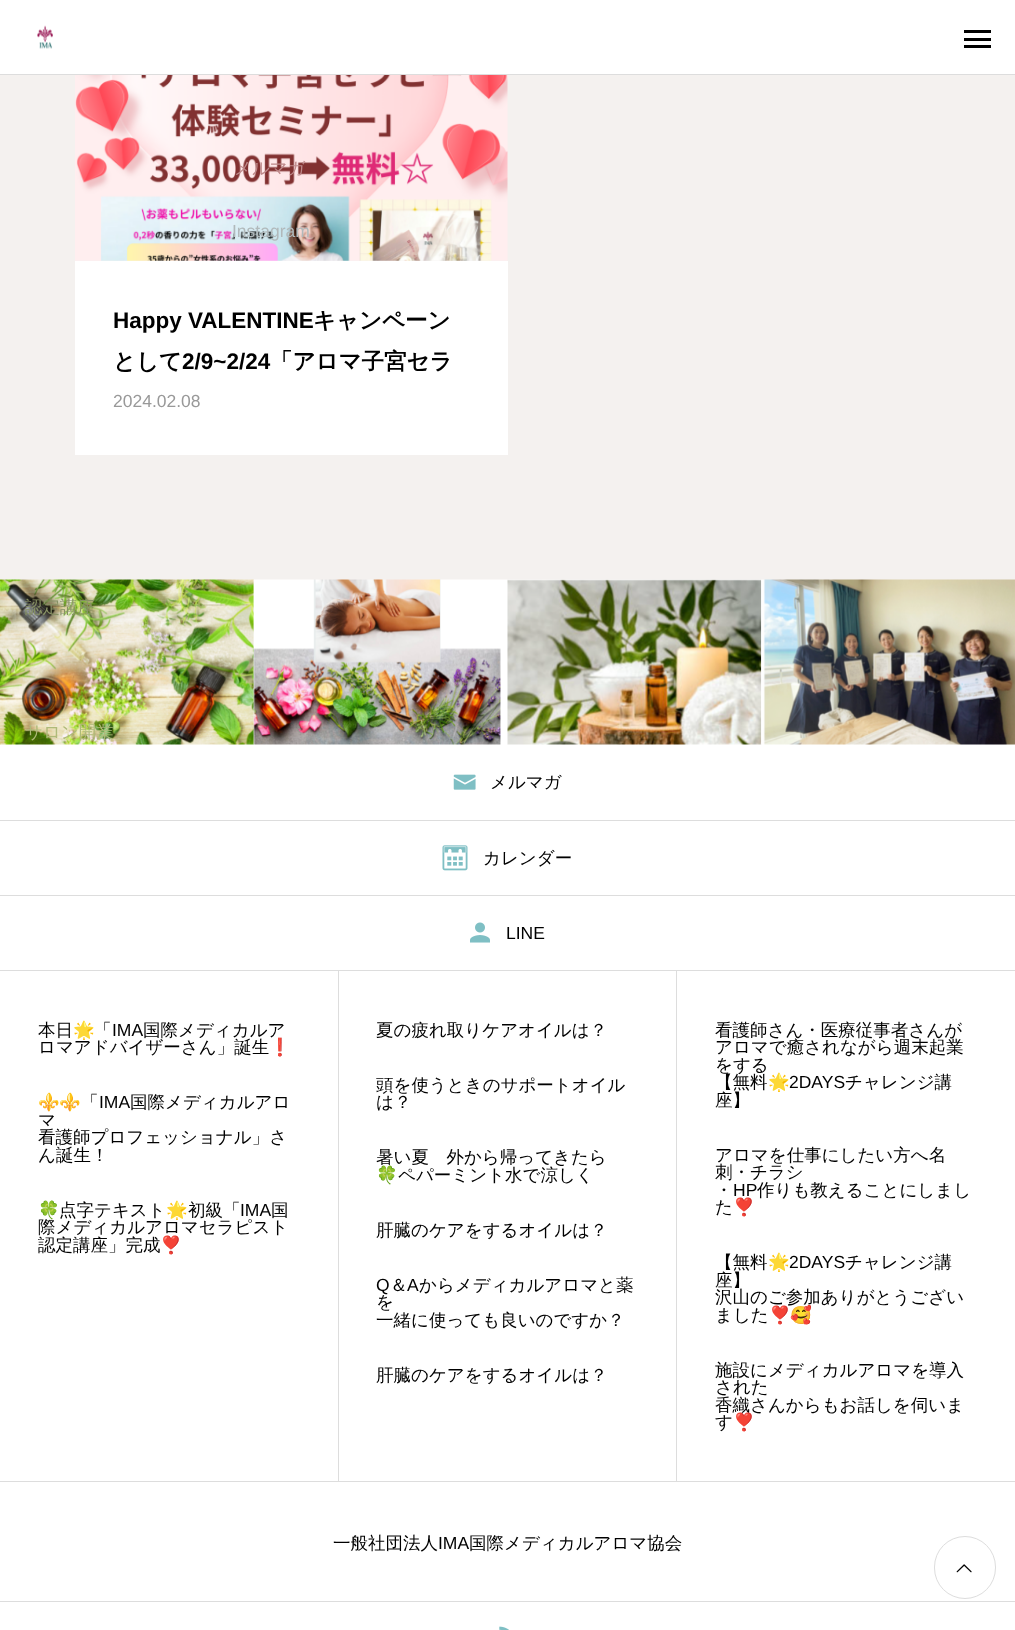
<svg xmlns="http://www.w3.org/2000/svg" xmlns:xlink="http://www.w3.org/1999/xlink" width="1015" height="1630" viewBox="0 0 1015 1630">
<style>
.cls-1{font:500 17.5px WenQuanYi Zen Hei;fill:#be898a}
.cls-2{font:17.5px Liberation Sans;fill:#b1b9bb}
.cls-3{font:500 17.5px WenQuanYi Zen Hei;fill:#879164}
.cls-4{font:500 17.5px WenQuanYi Zen Hei;fill:#aeba79}
.cls-5{font:bold 22.5px Liberation Sans;fill:#000000}
.cls-6{font:bold 22.5px WenQuanYi Zen Hei;fill:#000000}
.cls-7{font:17.5px Liberation Sans;fill:#999999}
.cls-8{font:500 17.5px WenQuanYi Zen Hei;fill:#000000}
.cls-9{font:17.5px Liberation Sans;fill:#000000}
.cls-10{font:17.5px Noto Color Emoji;fill:#000000}
</style>
<rect width="100%" height="100%" fill="#ffffff"/>
<image xlink:href="image0.png" x="37" y="25" width="16" height="24"/>
<rect fill="#000000" x="964" y="30" width="27" height="3"/>
<rect fill="#000000" x="964" y="38" width="27" height="3"/>
<rect fill="#000000" x="964" y="45" width="27" height="3"/>
<rect fill="#dddddd" x="0" y="74" width="1015" height="1"/>
<rect fill="#f4f1ef" x="0" y="75" width="1015" height="505"/>
<image xlink:href="image1.png" x="75" y="75" width="433" height="186"/>
<rect fill="#ffffff" x="75" y="261" width="433" height="194"/>
<image xlink:href="image2.png" x="0" y="579" width="254" height="166"/>
<image xlink:href="image3.png" x="253" y="579" width="255" height="166"/>
<image xlink:href="image4.png" x="507" y="579" width="255" height="166"/>
<image xlink:href="image5.png" x="761" y="579" width="254" height="166"/>
<image xlink:href="image6.png" x="453" y="774" width="23" height="16"/>
<rect fill="#dddddd" x="0" y="820" width="1015" height="1"/>
<image xlink:href="image7.png" x="442" y="845" width="26" height="26"/>
<rect fill="#dddddd" x="0" y="895" width="1015" height="1"/>
<image xlink:href="image8.png" x="470" y="922" width="20" height="21"/>
<rect fill="#dddddd" x="0" y="970" width="1015" height="1"/>
<rect fill="#dddddd" x="338" y="971" width="1" height="510"/>
<rect fill="#dddddd" x="676" y="971" width="1" height="510"/>
<rect fill="#dddddd" x="0" y="1481" width="1015" height="1"/>
<rect fill="#dddddd" x="0" y="1601" width="1015" height="1"/>
<image xlink:href="image9.png" x="499" y="1626" width="10" height="4"/>
<rect fill="none" stroke="#dddddd" x="934.5" y="1536.5" width="61" height="62" rx="30.5"/>
<image xlink:href="image10.png" x="956" y="1564" width="16" height="9"/>
<text class="cls-1" x="234" y="174">メルマガ</text>
<text class="cls-2" x="232" y="237">Instagram</text>
<text class="cls-3" x="25" y="613">認定講座</text>
<text class="cls-4" x="25" y="738">サロン開業</text>
<text class="cls-5" x="113" y="328">Happy VALENTINE</text>
<text class="cls-6" x="313" y="328">キャンペーン</text>
<text class="cls-6" x="113" y="369">として</text>
<text class="cls-5" x="182" y="369">2/9~2/24</text>
<text class="cls-6" x="270" y="369">「アロマ子宮セラ</text>
<text class="cls-7" x="113" y="407">2024.02.08</text>
<text class="cls-8" x="490" y="788">メルマガ</text>
<text class="cls-8" x="483" y="864">カレンダー</text>
<text class="cls-9" x="506" y="939">LINE</text>
<text class="cls-8" x="38" y="1036">本日</text>
<text class="cls-10" x="73" y="1036">🌟</text>
<text class="cls-8" x="94" y="1036">「</text>
<text class="cls-9" x="112" y="1036">IMA</text>
<text class="cls-8" x="143" y="1036">国際メディカルア</text>
<text class="cls-8" x="38" y="1053">ロマアドバイザーさん」誕生</text>
<text class="cls-10" x="269" y="1053">❗</text>
<text class="cls-10" x="38" y="1108">⚜️⚜️</text>
<text class="cls-8" x="81" y="1108">「</text>
<text class="cls-9" x="99" y="1108">IMA</text>
<text class="cls-8" x="130" y="1108">国際メディカルアロ</text>
<text class="cls-8"><tspan x="38" y="1126">マ</tspan><tspan x="38" y="1143">看護師プロフェッショナル」さ</tspan><tspan x="38" y="1161">ん誕生！</tspan></text>
<text class="cls-10" x="38" y="1216">🍀</text>
<text class="cls-8" x="59" y="1216">点字テキスト</text>
<text class="cls-10" x="166" y="1216">🌟</text>
<text class="cls-8" x="188" y="1216">初級「</text>
<text class="cls-9" x="240" y="1216">IMA</text>
<text class="cls-8" x="271" y="1216">国</text>
<text class="cls-8"><tspan x="38" y="1233">際メディカルアロマセラピスト</tspan><tspan x="38" y="1251">認定講座」完成</tspan></text>
<text class="cls-10" x="160" y="1251">❣️</text>
<text class="cls-8" x="376" y="1036">夏の疲れ取りケアオイルは？</text>
<text class="cls-8"><tspan x="376" y="1091">頭を使うときのサポートオイル</tspan><tspan x="376" y="1108">は？</tspan></text>
<text class="cls-8" x="376" y="1163">暑い夏　外から帰ってきたら</text>
<text class="cls-10" x="376" y="1181">🍀</text>
<text class="cls-8" x="398" y="1181">ペパーミント水で涼しく</text>
<text class="cls-8" x="376" y="1236">肝臓のケアをするオイルは？</text>
<text class="cls-9" x="376" y="1291">Q</text>
<text class="cls-8" x="390" y="1291">＆</text>
<text class="cls-9" x="407" y="1291">A</text>
<text class="cls-8" x="419" y="1291">からメディカルアロマと薬</text>
<text class="cls-8"><tspan x="376" y="1308">を</tspan><tspan x="376" y="1326">一緒に使っても良いのですか？</tspan></text>
<text class="cls-8" x="376" y="1381">肝臓のケアをするオイルは？</text>
<text class="cls-8"><tspan x="715" y="1036">看護師さん・医療従事者さんが</tspan><tspan x="715" y="1053">アロマで癒されながら週末起業</tspan><tspan x="715" y="1071">をする</tspan><tspan x="715" y="1088">【無料</tspan></text>
<text class="cls-10" x="768" y="1088">🌟</text>
<text class="cls-9" x="789" y="1088">2DAYS</text>
<text class="cls-8" x="845" y="1088">チャレンジ講</text>
<text class="cls-8" x="715" y="1106">座】</text>
<text class="cls-8"><tspan x="715" y="1161">アロマを仕事にしたい方へ名</tspan><tspan x="715" y="1178">刺・チラシ</tspan><tspan x="715" y="1196">・</tspan></text>
<text class="cls-9" x="733" y="1196">HP</text>
<text class="cls-8" x="757" y="1196">作りも教えることにしまし</text>
<text class="cls-8" x="715" y="1213">た</text>
<text class="cls-10" x="733" y="1213">❣️</text>
<text class="cls-8" x="715" y="1268">【無料</text>
<text class="cls-10" x="768" y="1268">🌟</text>
<text class="cls-9" x="789" y="1268">2DAYS</text>
<text class="cls-8" x="845" y="1268">チャレンジ講</text>
<text class="cls-8"><tspan x="715" y="1286">座】</tspan><tspan x="715" y="1303">沢山のご参加ありがとうござい</tspan><tspan x="715" y="1321">ました</tspan></text>
<text class="cls-10" x="769" y="1321">❣️🥰</text>
<text class="cls-8"><tspan x="715" y="1376">施設にメディカルアロマを導入</tspan><tspan x="715" y="1393">された</tspan><tspan x="715" y="1411">香織さんからもお話しを伺いま</tspan><tspan x="715" y="1428">す</tspan></text>
<text class="cls-10" x="733" y="1428">❣️</text>
<text class="cls-8" x="333" y="1549">一般社団法人</text>
<text class="cls-9" x="438" y="1549">IMA</text>
<text class="cls-8" x="469" y="1549">国際メディカルアロマ協会</text>
</svg>
